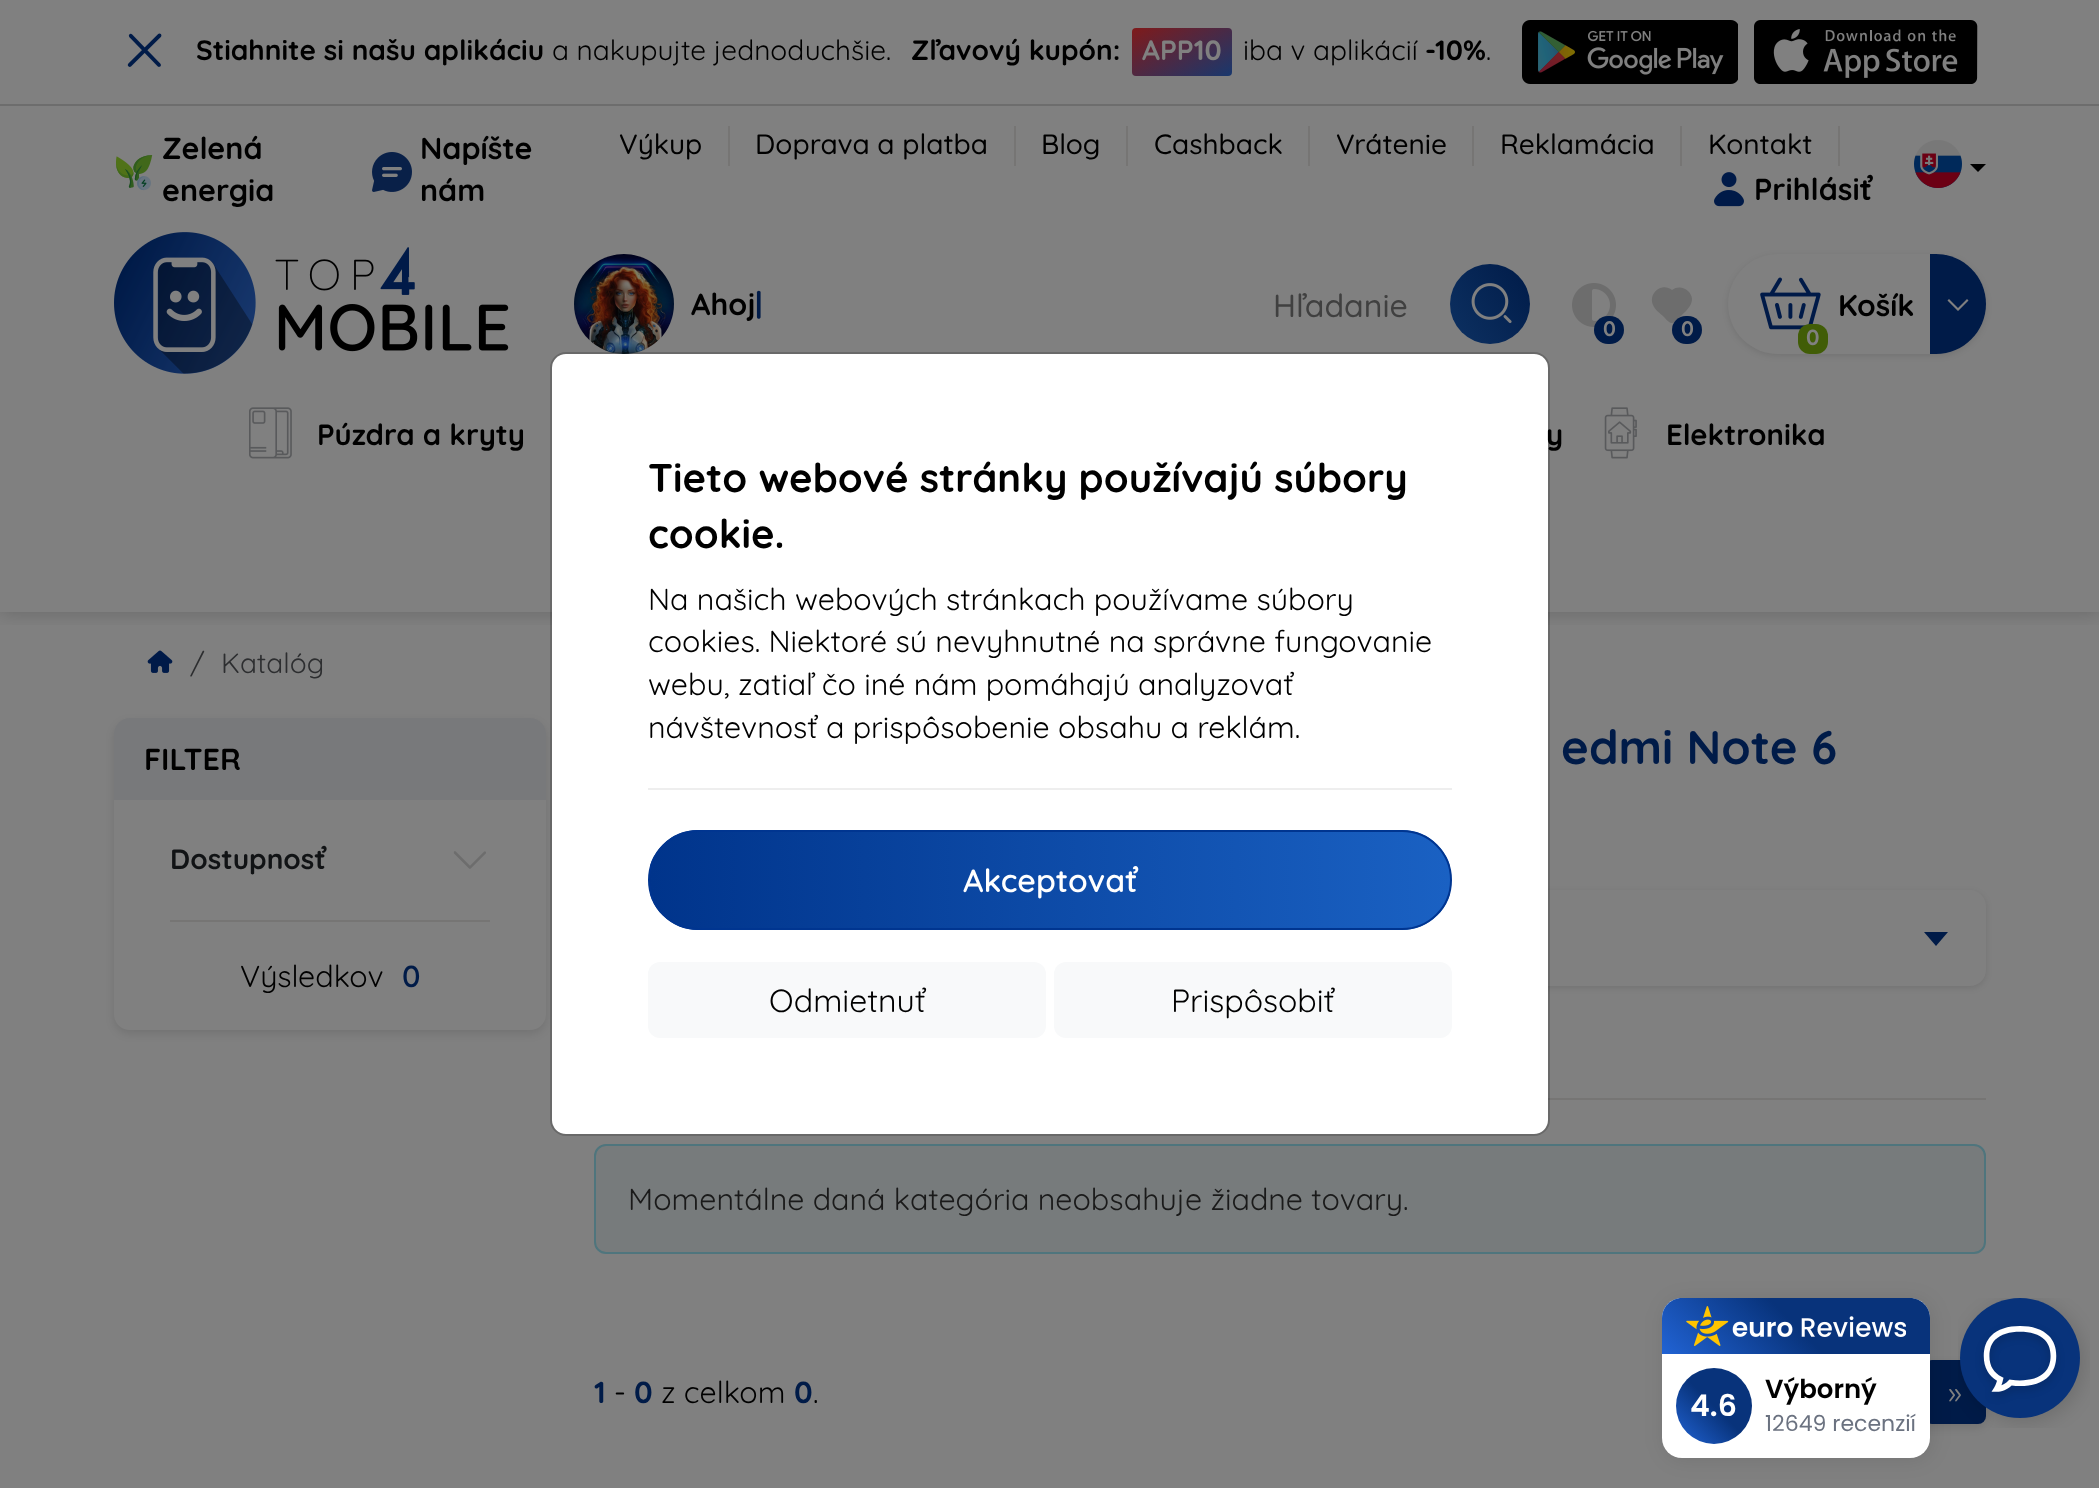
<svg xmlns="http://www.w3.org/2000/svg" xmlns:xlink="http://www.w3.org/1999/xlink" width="2099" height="1488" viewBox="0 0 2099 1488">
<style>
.cls-1{font:300 96px Quicksand;fill:#001b48}
.cls-2{font:bold 28px Quicksand;fill:#000000}
.cls-3{font:28px Quicksand;fill:#000000}
.cls-4{font:bold 28px Quicksand;fill:#808080}
.cls-5{font:bold 30.4px Quicksand;fill:#000000}
.cls-6{font:500 28px Quicksand;fill:#000000}
.cls-7{font:bold 30.4px Quicksand;fill:#001b48}
.cls-8{font:500 32px Quicksand;fill:#404040}
.cls-9{font:bold 21px Quicksand;fill:#808080}
.cls-10{font:bold 30px Quicksand;fill:#000000}
.cls-11{font:bold 22px Quicksand;fill:#808080}
.cls-12{font:bold 29.25px Quicksand;fill:#000000}
.cls-13{font:28px Quicksand;fill:#2d2e30}
.cls-14{font:bold 40px Quicksand;fill:#000000}
.cls-15{font:30.4px Quicksand;fill:#000000}
.cls-16{font:600 32px Quicksand;fill:#ffffff}
.cls-17{font:32px Quicksand;fill:#000000}
.cls-18{font:bold 28px Quicksand;fill:#111315}
.cls-19{font:600 30.4px Quicksand;fill:#001b48}
.cls-20{font:bold 47.25px Quicksand;fill:#001b48}
.cls-21{font:30.4px Quicksand;fill:#1a1a1a}
.cls-22{font:30.4px Quicksand;fill:#808080}
.cls-23{font:600 30px Poppins;fill:#ffffff}
.cls-24{font:600 26px Poppins;fill:#000000}
.cls-25{font:22px Poppins;fill:#6b7280}
</style>
<defs>
<linearGradient id="g1" gradientUnits="userSpaceOnUse" x1="1205" y1="92" x2="1159" y2="12"><stop offset="0" stop-color="#18386e"/><stop offset="1" stop-color="#801a1a"/></linearGradient>
<clipPath id="clip1"><rect x="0" y="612" width="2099" height="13"/></clipPath>
<linearGradient id="g2" gradientUnits="userSpaceOnUse" x1="1536" y1="272" x2="1444" y2="336"><stop offset="0" stop-color="#001b48"/><stop offset="1" stop-color="#0d3162"/></linearGradient>
<clipPath id="clip2"><path d="M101 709H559V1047H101ZM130 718H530C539 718 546 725 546 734V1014C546 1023 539 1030 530 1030H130C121 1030 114 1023 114 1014V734C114 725 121 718 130 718Z" clip-rule="evenodd"/></clipPath>
<linearGradient id="g3" gradientUnits="userSpaceOnUse" x1="1715" y1="1407" x2="1877" y2="1245"><stop offset="0" stop-color="#2163d4"/><stop offset="0.5" stop-color="#08337b"/></linearGradient>
<linearGradient id="g4" gradientUnits="userSpaceOnUse" x1="1676" y1="1444" x2="1752" y2="1368"><stop offset="0" stop-color="#2163d4"/><stop offset="0.5" stop-color="#08337b"/></linearGradient>
<clipPath id="clip3"><rect x="648" y="830" width="804" height="100" rx="50"/></clipPath>
<linearGradient id="g5" gradientUnits="userSpaceOnUse" x1="650" y1="880" x2="1450" y2="880"><stop offset="0" stop-color="#00348b"/><stop offset="1" stop-color="#1a61c3"/></linearGradient>
</defs>
<rect width="100%" height="100%" fill="#808080"/>
<rect fill="#6d6d6d" x="0" y="104" width="2099" height="2"/>
<rect fill="url(#g1)" x="1132" y="28" width="100" height="48" rx="4"/>
<image xlink:href="image0.png" x="1522" y="20" width="216" height="64"/>
<image xlink:href="image1.png" x="1754" y="20" width="224" height="64"/>
<image xlink:href="image2.png" x="116" y="155" width="37" height="36"/>
<image xlink:href="image3.png" x="372" y="152" width="40" height="40"/>
<rect fill="#767574" x="728" y="126" width="2" height="40"/>
<rect fill="#767574" x="1014" y="126" width="2" height="40"/>
<rect fill="#767574" x="1126" y="126" width="2" height="40"/>
<rect fill="#767574" x="1308" y="126" width="2" height="40"/>
<rect fill="#767574" x="1472" y="126" width="2" height="40"/>
<rect fill="#767574" x="1680" y="126" width="2" height="40"/>
<rect fill="#767574" x="1838" y="126" width="2" height="40"/>
<image xlink:href="image4.png" x="1714" y="172" width="30" height="35"/>
<image xlink:href="image5.png" x="1914" y="140" width="48" height="48"/>
<path fill="#000000" d="M1970 164H1986L1978 172Z"/>
<g clip-path="url(#clip1)">
<rect fill="#000000" fill-opacity="0.2" filter="blur(10px)" x="0" y="376" width="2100" height="236"/>
</g>
<rect fill="#808080" x="0" y="363" width="2099" height="13"/>
<image xlink:href="image6.png" x="114" y="232" width="395" height="142"/>
<image xlink:href="image7.png" x="574" y="254" width="100" height="100"/>
<circle fill="url(#g2)" cx="1490" cy="304" r="40"/>
<image xlink:href="image8.png" x="1471" y="283" width="41" height="41"/>
<image xlink:href="image9.png" x="1572" y="283" width="44" height="44"/>
<rect fill="#001b48" x="1594" y="316" width="30" height="28" rx="14"/>
<path fill="#6d6d6d" d="M1688 291C1684 287 1677 286 1672 290C1662 282 1648 293 1653 305C1655 310 1660 313 1664 317C1671 325 1673 325 1680 317C1687 310 1698 301 1688 291Z"/>
<rect fill="#001b48" x="1672" y="316" width="30" height="28" rx="14"/>
<rect fill="#000000" fill-opacity="0.1" filter="blur(3px)" x="1728" y="256" width="258" height="100" rx="50"/>
<rect fill="#808080" x="1728" y="254" width="258" height="100" rx="50"/>
<image xlink:href="image10.png" x="1760" y="277" width="61" height="53"/>
<rect fill="#415d07" x="1798" y="324" width="30" height="30" rx="12"/>
<path fill="#001b48" d="M1930 254H1936C1963.5 254 1986 276.5 1986 304C1986 331.5 1963.5 354 1936 354H1930Z"/>
<path fill="#808080" d="M1949.5 299.5L1949 299L1947.5 300.5L1958 311L1968.5 300.5L1967 299L1958 308Z"/>
<image xlink:href="image11.png" x="249" y="407" width="43" height="52"/>
<image xlink:href="image12.png" x="1604" y="407" width="33" height="52"/>
<image xlink:href="image13.png" x="147" y="650" width="26" height="23"/>
<g clip-path="url(#clip2)">
<rect fill="#000000" fill-opacity="0.1" filter="blur(4px)" x="114" y="722" width="432" height="312" rx="16"/>
</g>
<rect fill="#000000" fill-opacity="0.1" filter="blur(3px)" x="752" y="892" width="1234" height="96" rx="16"/>
<rect fill="#808080" x="752" y="890" width="1234" height="96" rx="16"/>
<rect fill="#ffffff" x="552" y="354" width="996" height="780" rx="14"/>
<path fill="#78797b" d="M130 718H530C539 718 546 725 546 734V800H114V734C114 725 121 718 130 718Z"/>
<rect fill="#767574" x="170" y="920" width="320" height="2"/>
<image xlink:href="image14.png" x="453" y="851" width="33" height="18"/>
<path fill="#001b48" d="M1924 932H1948L1936 946Z"/>
<rect fill="#767574" x="1548" y="1098" width="438" height="2"/>
<rect fill="#777b7c" stroke="#4f757d" stroke-width="2" x="595" y="1145" width="1390" height="108" rx="11"/>
<rect fill="#000000" fill-opacity="0.1" filter="blur(4px)" x="1804" y="1364" width="182" height="64" rx="10"/>
<rect fill="#001b48" x="1924" y="1360" width="62" height="64" rx="8"/>
<rect fill="#000000" fill-opacity="0.09" filter="blur(10px)" x="1664" y="1300" width="268" height="160" rx="20"/>
<rect fill="#ffffff" x="1662" y="1298" width="268" height="160" rx="20"/>
<path fill="url(#g3)" d="M1682 1298H1910C1921 1298 1930 1307 1930 1318V1354H1662V1318C1662 1307 1671 1298 1682 1298Z"/>
<image xlink:href="image16.png" x="1686" y="1306" width="220" height="40"/>
<circle fill="url(#g4)" cx="1714" cy="1406" r="38"/>
<text class="cls-1" x="123" y="82">×</text>
<text class="cls-2" x="196" y="60">Stiahnite si našu aplikáciu</text>
<text class="cls-3" x="552" y="60">a nakupujte jednoduchšie.</text>
<text class="cls-2" x="911" y="60">Zľavový kupón:</text>
<text class="cls-4" x="1142" y="60">APP10</text>
<text class="cls-3" x="1243" y="60">iba v aplikácií</text>
<text class="cls-2" x="1425" y="60">-10%</text>
<text class="cls-3" x="1486" y="60">.</text>
<text class="cls-5"><tspan x="162" y="159">Zelená</tspan><tspan x="162" y="201">energia</tspan></text>
<text class="cls-5"><tspan x="420" y="159">Napíšte</tspan><tspan x="420" y="201">nám</tspan></text>
<text class="cls-6" x="619" y="154">Výkup</text>
<text class="cls-6" x="755" y="154">Doprava a platba</text>
<text class="cls-6" x="1041" y="154">Blog</text>
<text class="cls-6" x="1154" y="154">Cashback</text>
<text class="cls-6" x="1336" y="154">Vrátenie</text>
<text class="cls-6" x="1500" y="154">Reklamácia</text>
<text class="cls-6" x="1708" y="154">Kontakt</text>
<text class="cls-5" x="1754" y="200">Prihlásiť</text>
<text class="cls-5" x="691" y="315">Ahoj</text>
<text class="cls-7" x="755" y="315">|</text>
<text class="cls-8" x="1273" y="317">Hľadanie</text>
<text class="cls-9" x="1603" y="336">0</text>
<text class="cls-9" x="1681" y="336">0</text>
<text class="cls-10" x="1838" y="316">Košík</text>
<text class="cls-11" x="1806" y="345">0</text>
<text class="cls-12" x="317" y="445">Púzdra a kryty</text>
<text class="cls-12" x="1546" y="445">y</text>
<text class="cls-12" x="1666" y="445">Elektronika</text>
<text class="cls-13" x="190" y="673">/</text>
<text class="cls-13" x="221" y="673">Katalóg</text>
<rect fill="none" stroke="#000000" stroke-opacity="0.18" stroke-width="2" x="551" y="353" width="998" height="782" rx="15"/>
<text class="cls-14"><tspan x="648" y="492">Tieto webové stránky používajú súbory</tspan><tspan x="648" y="548">cookie.</tspan></text>
<text class="cls-15"><tspan x="648" y="610">Na našich webových stránkach používame súbory</tspan><tspan x="648" y="652">cookies. Niektoré sú nevyhnutné na správne fungovanie</tspan><tspan x="648" y="695">webu, zatiaľ čo iné nám pomáhajú analyzovať</tspan><tspan x="648" y="738">návštevnosť a prispôsobenie obsahu a reklám.</tspan></text>
<rect fill="#eeeeee" x="648" y="788" width="804" height="2"/>
<g clip-path="url(#clip3)">
<rect fill="url(#g5)" x="650" y="830" width="800" height="100"/>
</g>
<rect fill="none" stroke="#003590" stroke-width="2" x="649" y="831" width="802" height="98" rx="49"/>
<text class="cls-16" x="963" y="892">Akceptovať</text>
<rect fill="#f8f9fa" x="648" y="962" width="398" height="76" rx="12"/>
<text class="cls-17" x="769" y="1012">Odmietnuť</text>
<rect fill="#f8f9fa" x="1054" y="962" width="398" height="76" rx="12"/>
<text class="cls-17" x="1171" y="1012">Prispôsobiť</text>
<text class="cls-5" x="144" y="770">FILTER</text>
<text class="cls-18" x="170" y="869">Dostupnosť</text>
<text class="cls-15" x="240" y="987">Výsledkov</text>
<text class="cls-19" x="402" y="987">0</text>
<text class="cls-20" x="1561" y="764">edmi Note 6</text>
<text class="cls-21" x="628" y="1210">Momentálne daná kategória neobsahuje žiadne tovary.</text>
<text class="cls-7" x="594" y="1403">1</text>
<text class="cls-15" x="614" y="1403">-</text>
<text class="cls-7" x="634" y="1403">0</text>
<text class="cls-15" x="661" y="1403">z celkom</text>
<text class="cls-7" x="794" y="1403">0</text>
<text class="cls-15" x="813" y="1403">.</text>
<text class="cls-22" x="1948" y="1403">»</text>
<image xlink:href="image15.png" x="1958" y="1298" width="132" height="130"/>
<text class="cls-23" x="1690" y="1416">4.6</text>
<text class="cls-24" x="1765" y="1398">Výborný</text>
<text class="cls-25" x="1765" y="1431">12649 recenzií</text>
</svg>
